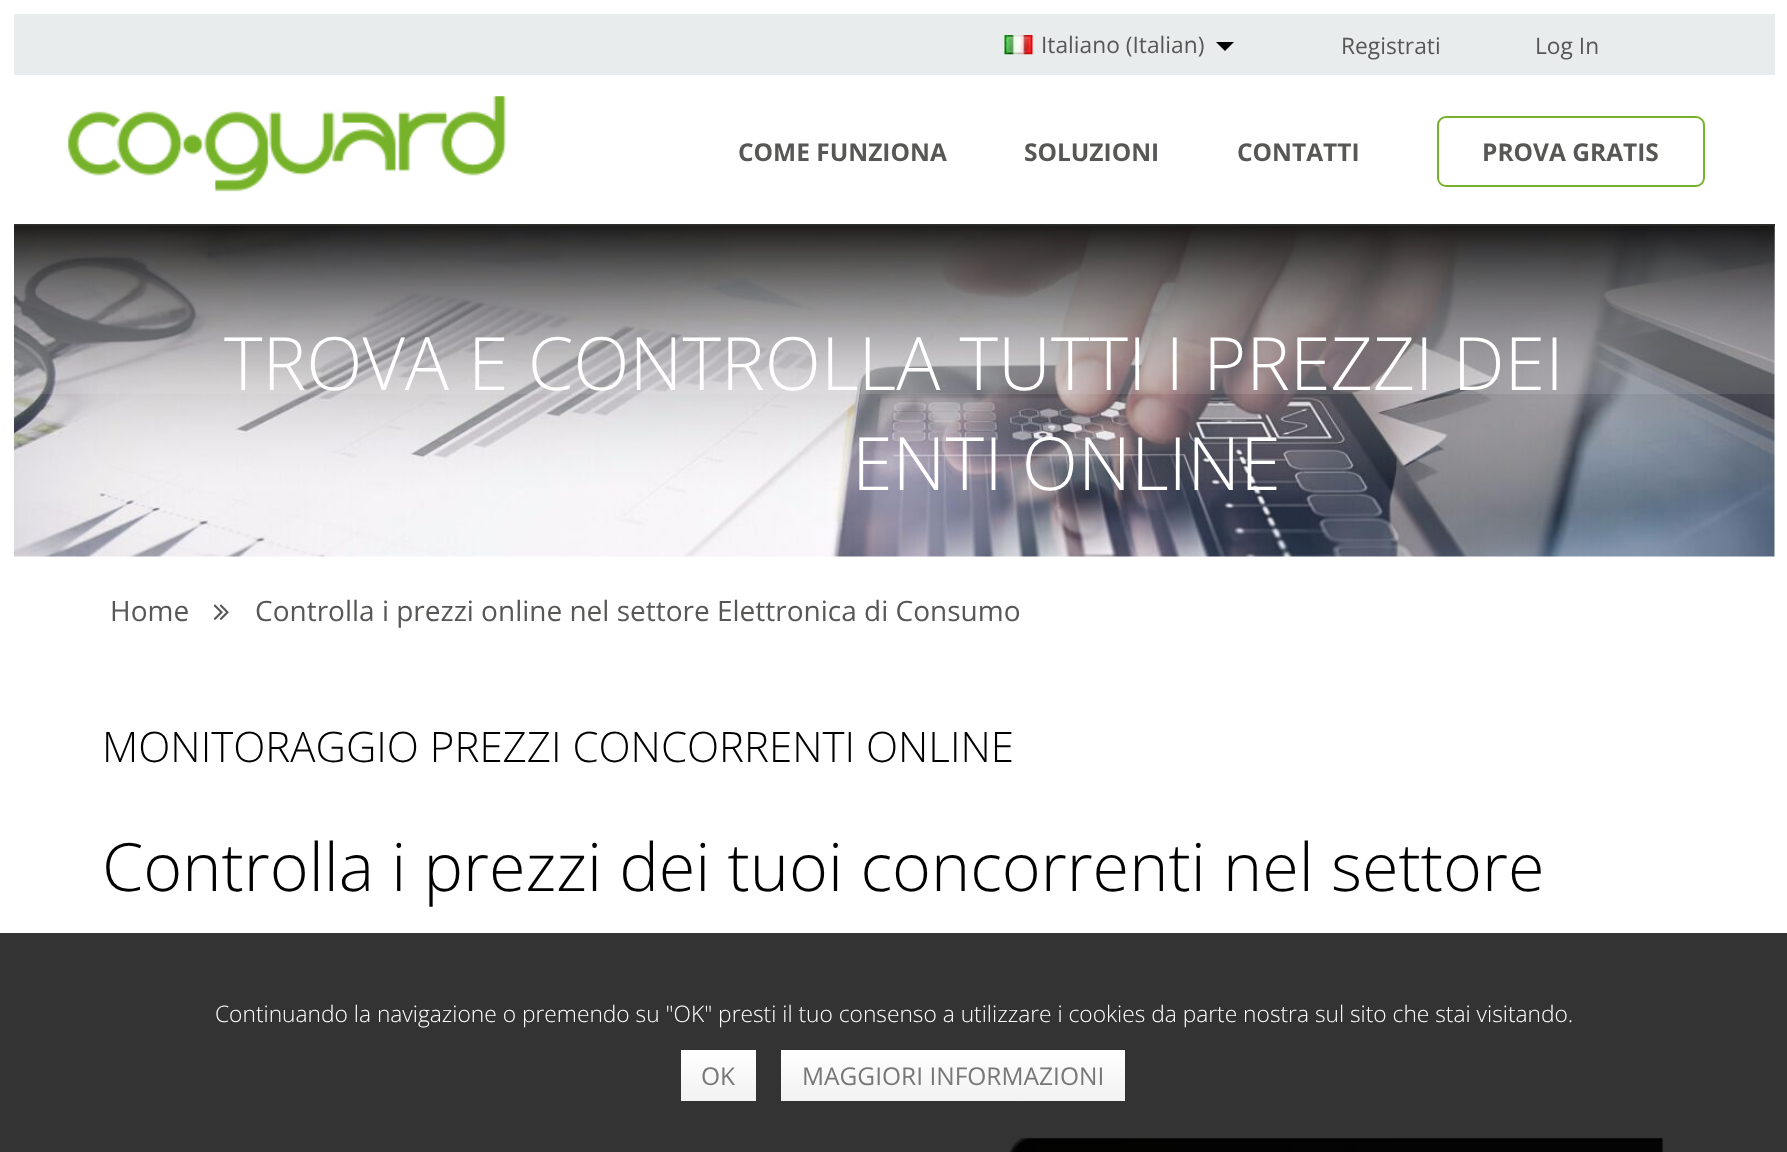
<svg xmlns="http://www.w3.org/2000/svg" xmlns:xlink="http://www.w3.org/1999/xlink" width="1787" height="1152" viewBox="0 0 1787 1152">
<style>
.cls-1{font:22.75px Open Sans;fill:#575756}
.cls-2{font:bold 24.5px Open Sans;fill:#575756}
.cls-3{font:300 73.5px Open Sans;fill:#ffffff}
.cls-4{font:28px Open Sans;fill:#575756}
.cls-5{font:300 42px Open Sans;fill:#000000}
.cls-6{font:300 66.5px Open Sans;fill:#000000}
.cls-7{font:300 22.75px Open Sans;fill:#ffffff}
.cls-8{font:24.5px Open Sans;fill:#777777}
</style>
<defs>
<linearGradient id="g1" gradientUnits="userSpaceOnUse" x1="894" y1="224" x2="894" y2="394"><stop offset="0" stop-color="#000000" stop-opacity="0.5"/><stop offset="1" stop-color="#ffffff" stop-opacity="0.1"/></linearGradient>
<linearGradient id="g2" gradientUnits="userSpaceOnUse" x1="718" y1="1050" x2="718" y2="1101"><stop offset="0" stop-color="#ffffff"/><stop offset="1" stop-color="#f2f2f2"/></linearGradient>
<linearGradient id="g3" gradientUnits="userSpaceOnUse" x1="953" y1="1050" x2="953" y2="1101"><stop offset="0" stop-color="#ffffff"/><stop offset="1" stop-color="#f2f2f2"/></linearGradient>
</defs>
<rect width="100%" height="100%" fill="#ffffff"/>
<rect fill="#e8eced" x="14" y="14" width="1761" height="61"/>
<image xlink:href="image0.png" x="1004" y="35" width="29" height="20"/>
<path fill="#000000" d="M1216 42H1234L1225 51Z"/>
<rect fill="#575756" x="14" y="224" width="1761" height="2"/>
<image xlink:href="image1.png" x="67" y="96" width="440" height="96"/>
<rect fill="none" stroke="#78b22b" stroke-width="2" x="1438" y="117" width="266" height="69" rx="8"/>
<image xlink:href="image2.png" x="14" y="225" width="1761" height="332"/>
<rect fill="url(#g1)" x="14" y="224" width="1761" height="170"/>
<image xlink:href="image3.png" x="213" y="604" width="16" height="16"/>
<image xlink:href="image4.png" x="1009" y="1138" width="654" height="14"/>
<rect fill="#000000" fill-opacity="0.8" x="0" y="933" width="1787" height="219"/>
<rect fill="url(#g2)" x="681" y="1050" width="75" height="51"/>
<rect fill="url(#g3)" x="781" y="1050" width="344" height="51"/>
<text class="cls-1" x="1041" y="53">Italiano (Italian)</text>
<text class="cls-1" x="1341" y="54">Registrati</text>
<text class="cls-1" x="1535" y="54">Log In</text>
<text class="cls-2" x="738" y="161">COME FUNZIONA</text>
<text class="cls-2" x="1024" y="161">SOLUZIONI</text>
<text class="cls-2" x="1237" y="161">CONTATTI</text>
<text class="cls-2" x="1482" y="161">PROVA GRATIS</text>
<text class="cls-3" x="224" y="390">TROVA E CONTROLLA TUTTI I PREZZI DEI</text>
<text class="cls-3" x="852" y="490">ENTI ONLINE</text>
<text class="cls-4" x="110" y="621">Home</text>
<text class="cls-4" x="255" y="621">Controlla i prezzi online nel settore Elettronica di Consumo</text>
<text class="cls-5" x="102" y="762">MONITORAGGIO PREZZI CONCORRENTI ONLINE</text>
<text class="cls-6" x="102" y="891">Controlla i prezzi dei tuoi concorrenti nel settore</text>
<text class="cls-7" x="215" y="1022">Continuando la navigazione o premendo su "OK" presti il tuo consenso a utilizzare i cookies da parte nostra sul sito che stai visitando.</text>
<text class="cls-8" x="701" y="1085">OK</text>
<text class="cls-8" x="802" y="1085">MAGGIORI INFORMAZIONI</text>
</svg>
